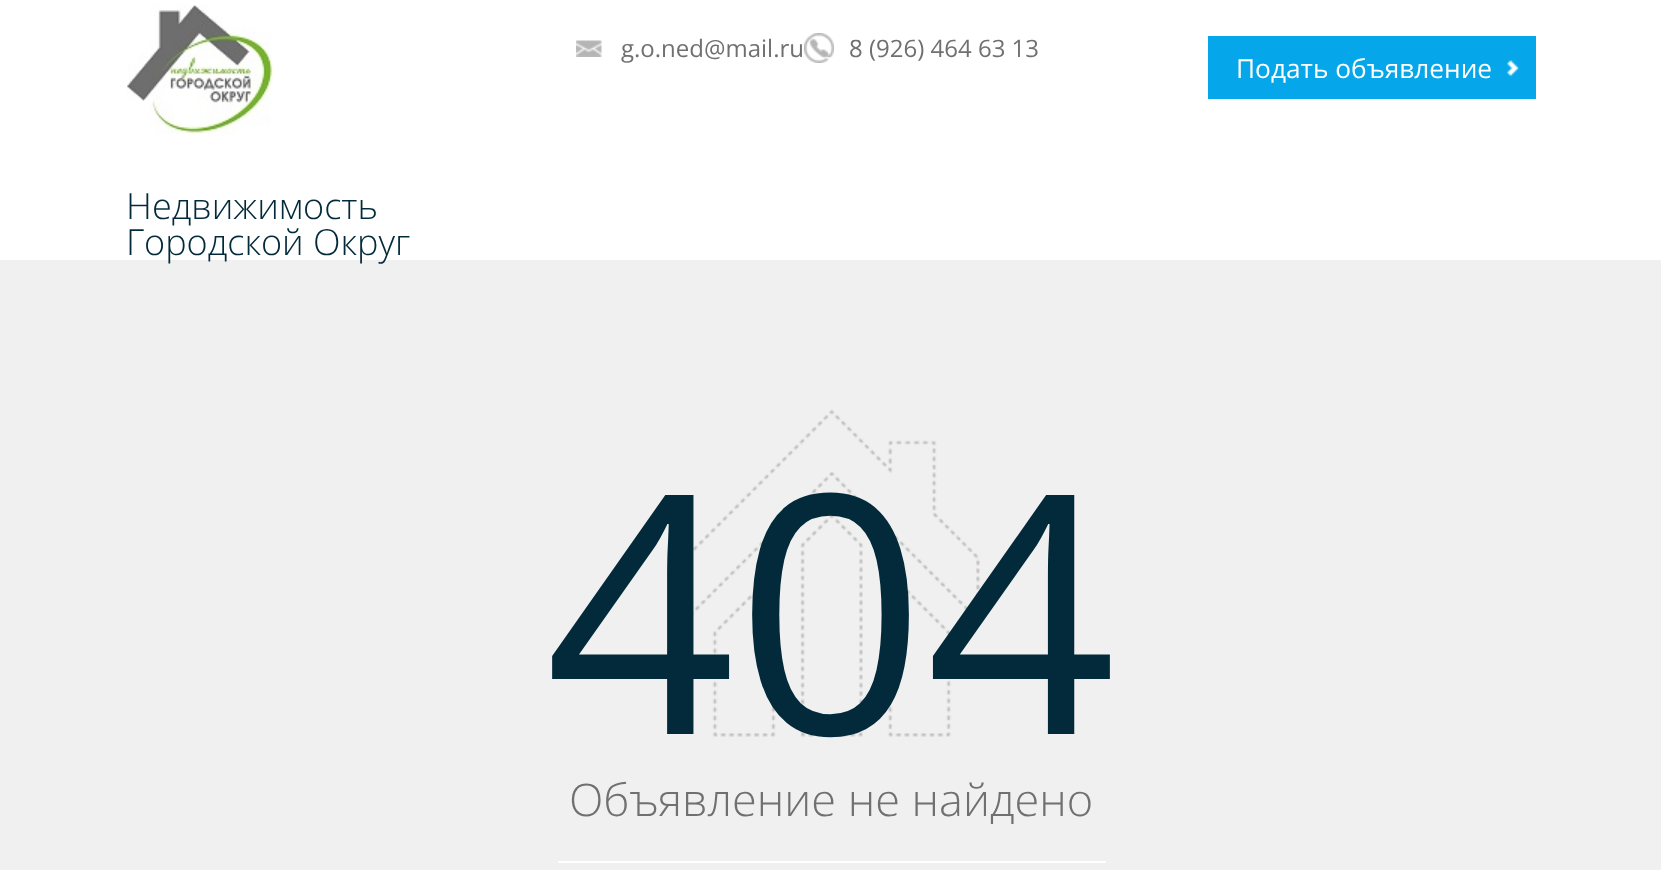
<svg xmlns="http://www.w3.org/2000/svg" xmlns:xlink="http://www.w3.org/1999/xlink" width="1661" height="870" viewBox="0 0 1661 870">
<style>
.cls-1{font:24px Open Sans;fill:#707070}
.cls-2{font:26.25px Open Sans;fill:#ffffff}
.cls-3{font:300 36px Open Sans;fill:#022a3b}
.cls-4{font:333px Open Sans;fill:#022a3b}
.cls-5{font:300 45px Open Sans;fill:#707070}
</style>
<rect width="100%" height="100%" fill="#f0f0f0"/>
<rect fill="#ffffff" x="0" y="0" width="1661" height="260"/>
<image xlink:href="image0.png" x="576" y="40" width="26" height="17"/>
<image xlink:href="image1.png" x="804" y="33" width="30" height="30"/>
<rect fill="#06a7ea" x="1208" y="36" width="328" height="63"/>
<image xlink:href="image2.png" x="1507" y="60" width="12" height="17"/>
<image xlink:href="image3.png" x="127" y="4" width="146" height="130"/>
<image xlink:href="image4.png" x="684" y="409" width="296" height="328"/>
<rect fill="#ffffff" x="558" y="861" width="548" height="2"/>
<text class="cls-1" x="621" y="57">g.o.ned@mail.ru</text>
<text class="cls-1" x="849" y="57">8 (926) 464 63 13</text>
<text class="cls-2" x="1236" y="78">Подать объявление</text>
<text class="cls-3"><tspan x="126" y="219">Недвижимость</tspan><tspan x="126" y="255">Городской Округ</tspan></text>
<text class="cls-4" x="545" y="734">404</text>
<text class="cls-5" x="569" y="816">Объявление не найдено</text>
</svg>
